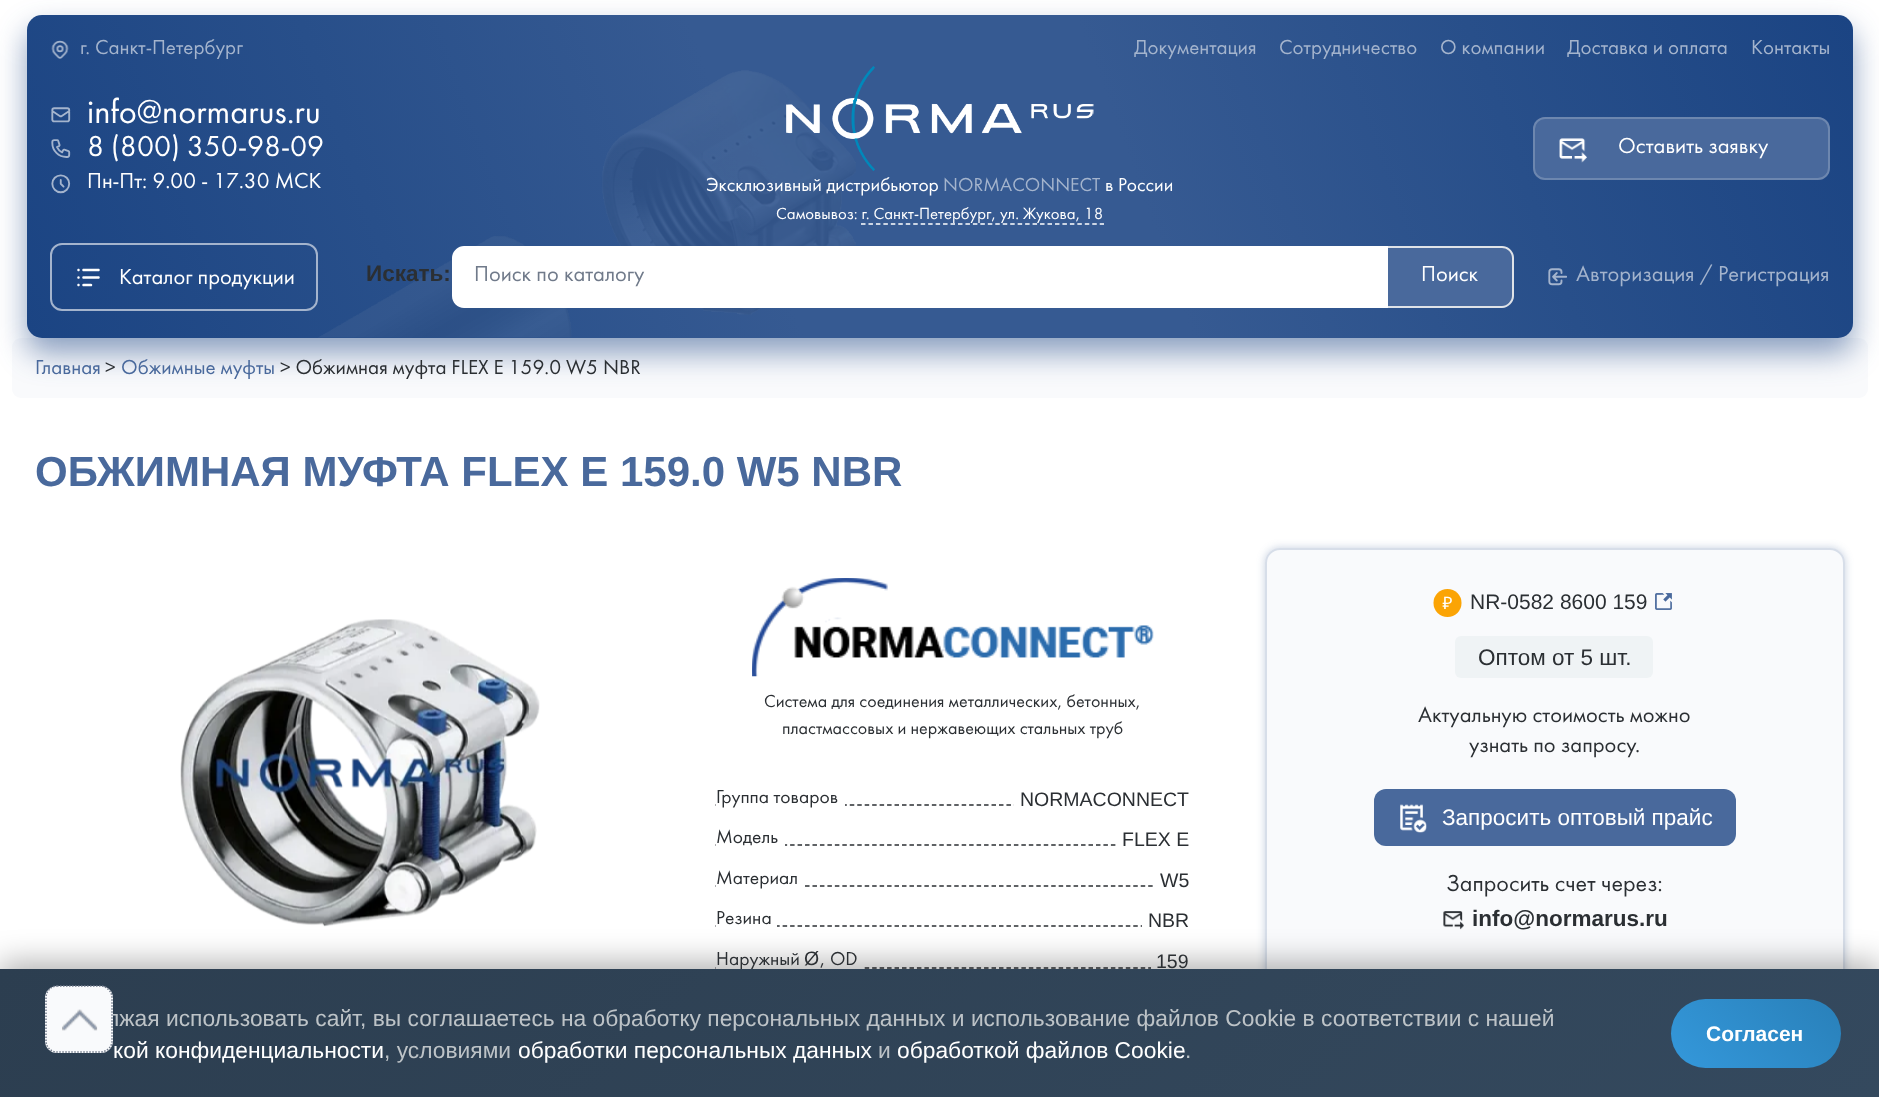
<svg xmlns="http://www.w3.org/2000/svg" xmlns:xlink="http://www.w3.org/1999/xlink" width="1879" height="1097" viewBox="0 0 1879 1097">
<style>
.cls-1{font:21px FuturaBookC;fill:#a4b4cd}
.cls-2{font:34.5px FuturaBookC;fill:#ffffff}
.cls-3{font:30px FuturaBookC;fill:#ffffff}
.cls-4{font:22.5px FuturaBookC;fill:#ffffff}
.cls-5{font:19.5px FuturaBookC;fill:#ffffff}
.cls-6{font:19.5px FuturaBookC;fill:#a4b4cd}
.cls-7{font:16.75px FuturaBookC;fill:#ffffff}
.cls-8{font:bold 22.5px Liberation Sans;fill:#2b2f33}
.cls-9{font:22.5px FuturaBookC;fill:#707a8a}
.cls-10{font:22.5px FuturaBookC;fill:#a4b4cd}
.cls-11{font:21px FuturaBookC;fill:#49699c}
.cls-12{font:21px FuturaBookC;fill:#2b2f33}
.cls-13{font:bold 42px Liberation Sans;fill:#49699c}
.cls-14{font:18px FuturaBookC;fill:#2b2f33}
.cls-15{font:19.5px FuturaBookC;fill:#2b2f33}
.cls-16{font:19.5px Liberation Sans;fill:#2b2f33}
.cls-17{font:21px Liberation Sans;fill:#2b2f33}
.cls-18{font:22.5px Liberation Sans;fill:#2b2f33}
.cls-19{font:22.5px FuturaBookC;fill:#2b2f33}
.cls-20{font:22.5px Liberation Sans;fill:#ffffff}
.cls-21{font:24px FuturaBookC;fill:#2b2f33}
.cls-22{font:22.8px Liberation Sans;fill:#bdc3c7}
.cls-23{font:22.8px Liberation Sans;fill:#ffffff}
.cls-24{font:bold 21px Liberation Sans;fill:#ffffff}
</style>
<defs>
<linearGradient id="g1" gradientUnits="userSpaceOnUse" x1="82" y1="488" x2="1798" y2="-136"><stop offset="0" stop-color="#1b4483"/><stop offset="0.2" stop-color="#284f8a"/><stop offset="0.4" stop-color="#365a92"/><stop offset="0.6" stop-color="#365a92"/><stop offset="0.8" stop-color="#284f8a"/><stop offset="1" stop-color="#1b4483"/></linearGradient>
<linearGradient id="g2" gradientUnits="userSpaceOnUse" x1="438" y1="531" x2="1442" y2="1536"><stop offset="0" stop-color="#2c3e50"/><stop offset="1" stop-color="#34495e"/></linearGradient>
<linearGradient id="g3" gradientUnits="userSpaceOnUse" x1="1696" y1="1093" x2="1815" y2="974"><stop offset="0" stop-color="#3498db"/><stop offset="1" stop-color="#2980b9"/></linearGradient>
</defs>
<rect width="100%" height="100%" fill="#ffffff"/>
<rect fill="#f9fafc" x="12" y="338" width="1856" height="60" rx="9"/>
<rect fill="#1b4483" fill-opacity="0.5" filter="blur(15px)" x="27" y="30" width="1826" height="323" rx="15"/>
<rect fill="url(#g1)" x="27" y="15" width="1826" height="323" rx="15"/>
<image xlink:href="image0.png" x="51" y="40" width="18" height="19"/>
<image xlink:href="image1.png" x="318" y="70" width="538" height="268"/>
<image xlink:href="image2.png" x="51" y="107" width="20" height="16"/>
<image xlink:href="image3.png" x="51" y="139" width="20" height="19"/>
<image xlink:href="image4.png" x="51" y="174" width="20" height="20"/>
<rect fill="#49699c" x="1533" y="117" width="297" height="63" rx="12"/>
<image xlink:href="image5.png" x="1559" y="138" width="28" height="25"/>
<rect fill="none" stroke="#a4b4cd" stroke-opacity="0.4" stroke-width="2" x="1534" y="118" width="295" height="61" rx="11"/>
<image xlink:href="image6.png" x="786" y="66" width="308" height="105"/>
<path fill="none" stroke="#ffffff" stroke-width="1.5" stroke-dasharray="4.5 2.96" d="M861 224H1104"/>
<image xlink:href="image7.png" x="77" y="268" width="23" height="19"/>
<rect fill="none" stroke="#a4b4cd" stroke-width="2" x="51" y="244" width="266" height="66" rx="11"/>
<path fill="#ffffff" d="M464 246H1388V308H464C457.5 308 452 302.5 452 296V258C452 251.5 457.5 246 464 246Z"/>
<path fill="#49699c" d="M1388 246H1502C1508.5 246 1514 251.5 1514 258V296C1514 302.5 1508.5 308 1502 308H1388Z"/>
<path fill="#dfe3e8" fill-rule="evenodd" d="M1388 246H1502C1508 246 1514 251 1514 258V296C1514 302 1508 308 1502 308H1388ZM1388 248H1502C1507 248 1512 252 1512 258V296C1512 301 1507 306 1502 306H1388Z"/>
<image xlink:href="image8.png" x="1548" y="268" width="19" height="18"/>
<image xlink:href="image9.png" x="180" y="619" width="360" height="308"/>
<image xlink:href="image10.png" x="752" y="578" width="402" height="99"/>
<path fill="none" stroke="#2b2f33" stroke-width="1.5" stroke-dasharray="4.5 2.96" d="M715.5 805H1189.5"/>
<rect fill="#ffffff" x="716" y="804" width="129" height="2"/>
<rect fill="#ffffff" x="1014" y="804" width="176" height="2"/>
<path fill="none" stroke="#2b2f33" stroke-width="1.5" stroke-dasharray="4.5 2.96" d="M715.5 845H1189.5"/>
<rect fill="#ffffff" x="716" y="844" width="69" height="2"/>
<rect fill="#ffffff" x="1118" y="844" width="72" height="2"/>
<path fill="none" stroke="#2b2f33" stroke-width="1.5" stroke-dasharray="4.5 2.96" d="M715.5 886H1189.5"/>
<rect fill="#ffffff" x="716" y="885" width="87" height="2"/>
<rect fill="#ffffff" x="1155" y="885" width="35" height="2"/>
<path fill="none" stroke="#2b2f33" stroke-width="1.5" stroke-dasharray="4.5 2.96" d="M715.5 926H1189.5"/>
<rect fill="#ffffff" x="716" y="925" width="61" height="2"/>
<rect fill="#ffffff" x="1142" y="925" width="48" height="2"/>
<path fill="none" stroke="#2b2f33" stroke-width="1.5" stroke-dasharray="4.5 2.96" d="M715.5 968H1189.5"/>
<rect fill="#ffffff" x="716" y="967" width="146" height="2"/>
<rect fill="#ffffff" x="1151" y="967" width="39" height="2"/>
<rect fill="#1b4483" fill-opacity="0.25" filter="blur(4.5px)" x="1265" y="548" width="580" height="436" rx="15"/>
<rect fill="#f9fafc" x="1265" y="548" width="580" height="436" rx="15"/>
<rect fill="none" stroke="#a4b4cd" stroke-opacity="0.4" stroke-width="2" x="1266" y="549" width="578" height="434" rx="14"/>
<image xlink:href="image11.png" x="1433" y="589" width="29" height="28"/>
<image xlink:href="image12.png" x="1655" y="593" width="17" height="17"/>
<rect fill="#eff3f5" x="1455" y="636" width="198" height="42" rx="6"/>
<rect fill="#49699c" x="1374" y="789" width="362" height="57" rx="12"/>
<image xlink:href="image13.png" x="1400" y="804" width="27" height="29"/>
<image xlink:href="image14.png" x="1443" y="911" width="21" height="19"/>
<rect fill="#000000" fill-opacity="0.3" filter="blur(15px)" x="0" y="962" width="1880" height="129"/>
<text class="cls-1" x="80" y="54">г. Санкт-Петербург</text>
<text class="cls-1" x="1134" y="54">Документация</text>
<text class="cls-1" x="1279" y="54">Сотрудничество</text>
<text class="cls-1" x="1440" y="54">О компании</text>
<text class="cls-1" x="1567" y="54">Доставка и оплата</text>
<text class="cls-1" x="1751" y="54">Контакты</text>
<text class="cls-2" x="87" y="123">info@normarus.ru</text>
<text class="cls-3" x="87" y="156">8 (800) 350-98-09</text>
<text class="cls-4" x="87" y="188">Пн-Пт: 9.00 - 17.30 МСК</text>
<text class="cls-4" x="1618" y="153">Оставить заявку</text>
<text class="cls-5" x="706" y="191">Эксклюзивный дистрибьютор</text>
<text class="cls-6" x="943" y="191">NORMACONNECT</text>
<text class="cls-5" x="1105" y="191">в России</text>
<text class="cls-7" x="776" y="219">Самовывоз: г. Санкт-Петербург, ул. Жукова, 18</text>
<text class="cls-4" x="119" y="284">Каталог продукции</text>
<text class="cls-8" x="366" y="281">Искать:</text>
<text class="cls-9" x="474" y="281">Поиск по каталогу</text>
<text class="cls-4" x="1421" y="281">Поиск</text>
<text class="cls-10" x="1576" y="281">Авторизация / Регистрация</text>
<text class="cls-11" x="35" y="374">Главная</text>
<text class="cls-12" x="105" y="374">&gt;</text>
<text class="cls-11" x="121" y="374">Обжимные муфты</text>
<text class="cls-12" x="280" y="374">&gt; Обжимная муфта FLEX E 159.0 W5 NBR</text>
<text class="cls-13" x="35" y="486">ОБЖИМНАЯ МУФТА FLEX E 159.0 W5 NBR</text>
<text class="cls-14" x="764" y="707">Система для соединения металлических, бетонных,</text>
<text class="cls-14" x="782" y="734">пластмассовых и нержавеющих стальных труб</text>
<text class="cls-15" x="716" y="803">Группа товаров</text>
<text class="cls-16" x="1020" y="806">NORMACONNECT</text>
<text class="cls-15" x="716" y="843">Модель</text>
<text class="cls-16" x="1122" y="846">FLEX E</text>
<text class="cls-15" x="716" y="884">Материал</text>
<text class="cls-16" x="1160" y="887">W5</text>
<text class="cls-15" x="716" y="924">Резина</text>
<text class="cls-16" x="1148" y="927">NBR</text>
<text class="cls-15" x="716" y="965">Наружный</text>
<text class="cls-16" x="804" y="965">Ø</text>
<text class="cls-15" x="820" y="965">, OD</text>
<text class="cls-16" x="1156" y="968">159</text>
<text class="cls-17" x="1470" y="609">NR-0582 8600 159</text>
<text class="cls-18" x="1478" y="665">Оптом от 5 шт.</text>
<text class="cls-19" x="1418" y="722">Актуальную стоимость можно</text>
<text class="cls-19" x="1469" y="752">узнать по запросу.</text>
<text class="cls-20" x="1442" y="825">Запросить оптовый прайс</text>
<text class="cls-21" x="1446" y="891">Запросить счет через:</text>
<text class="cls-8" x="1472" y="926">info@normarus.ru</text>
<rect fill="url(#g2)" x="0" y="969" width="1879" height="128"/>
<text class="cls-22" x="106" y="1026">лжая использовать сайт, вы соглашаетесь на обработку персональных данных и использование файлов Cookie в соответствии с нашей</text>
<rect fill="#f9fafc" x="45" y="986" width="68" height="67" rx="12"/>
<image xlink:href="image15.png" x="62" y="1009" width="36" height="22"/>
<path fill="none" stroke="#707a8a" stroke-width="1.5" stroke-dasharray="1.5 1.5" d="M57 986H100.5C106.5 986 112 991.5 112 997.5V1041C112 1047 106.5 1052 100.5 1052H57C51 1052 46 1047 46 1041V997.5C46 991.5 51 986 57 986Z"/>
<text class="cls-23" x="113" y="1058">кой конфиденциальности</text>
<text class="cls-22" x="384" y="1058">, условиями</text>
<text class="cls-23" x="518" y="1058">обработки персональных данных</text>
<text class="cls-22" x="878" y="1058">и</text>
<text class="cls-23" x="897" y="1058">обработкой файлов Cookie</text>
<text class="cls-22" x="1185" y="1058">.</text>
<rect fill="url(#g3)" x="1671" y="999" width="170" height="69" rx="34.5"/>
<text class="cls-24" x="1706" y="1041">Согласен</text>
</svg>
